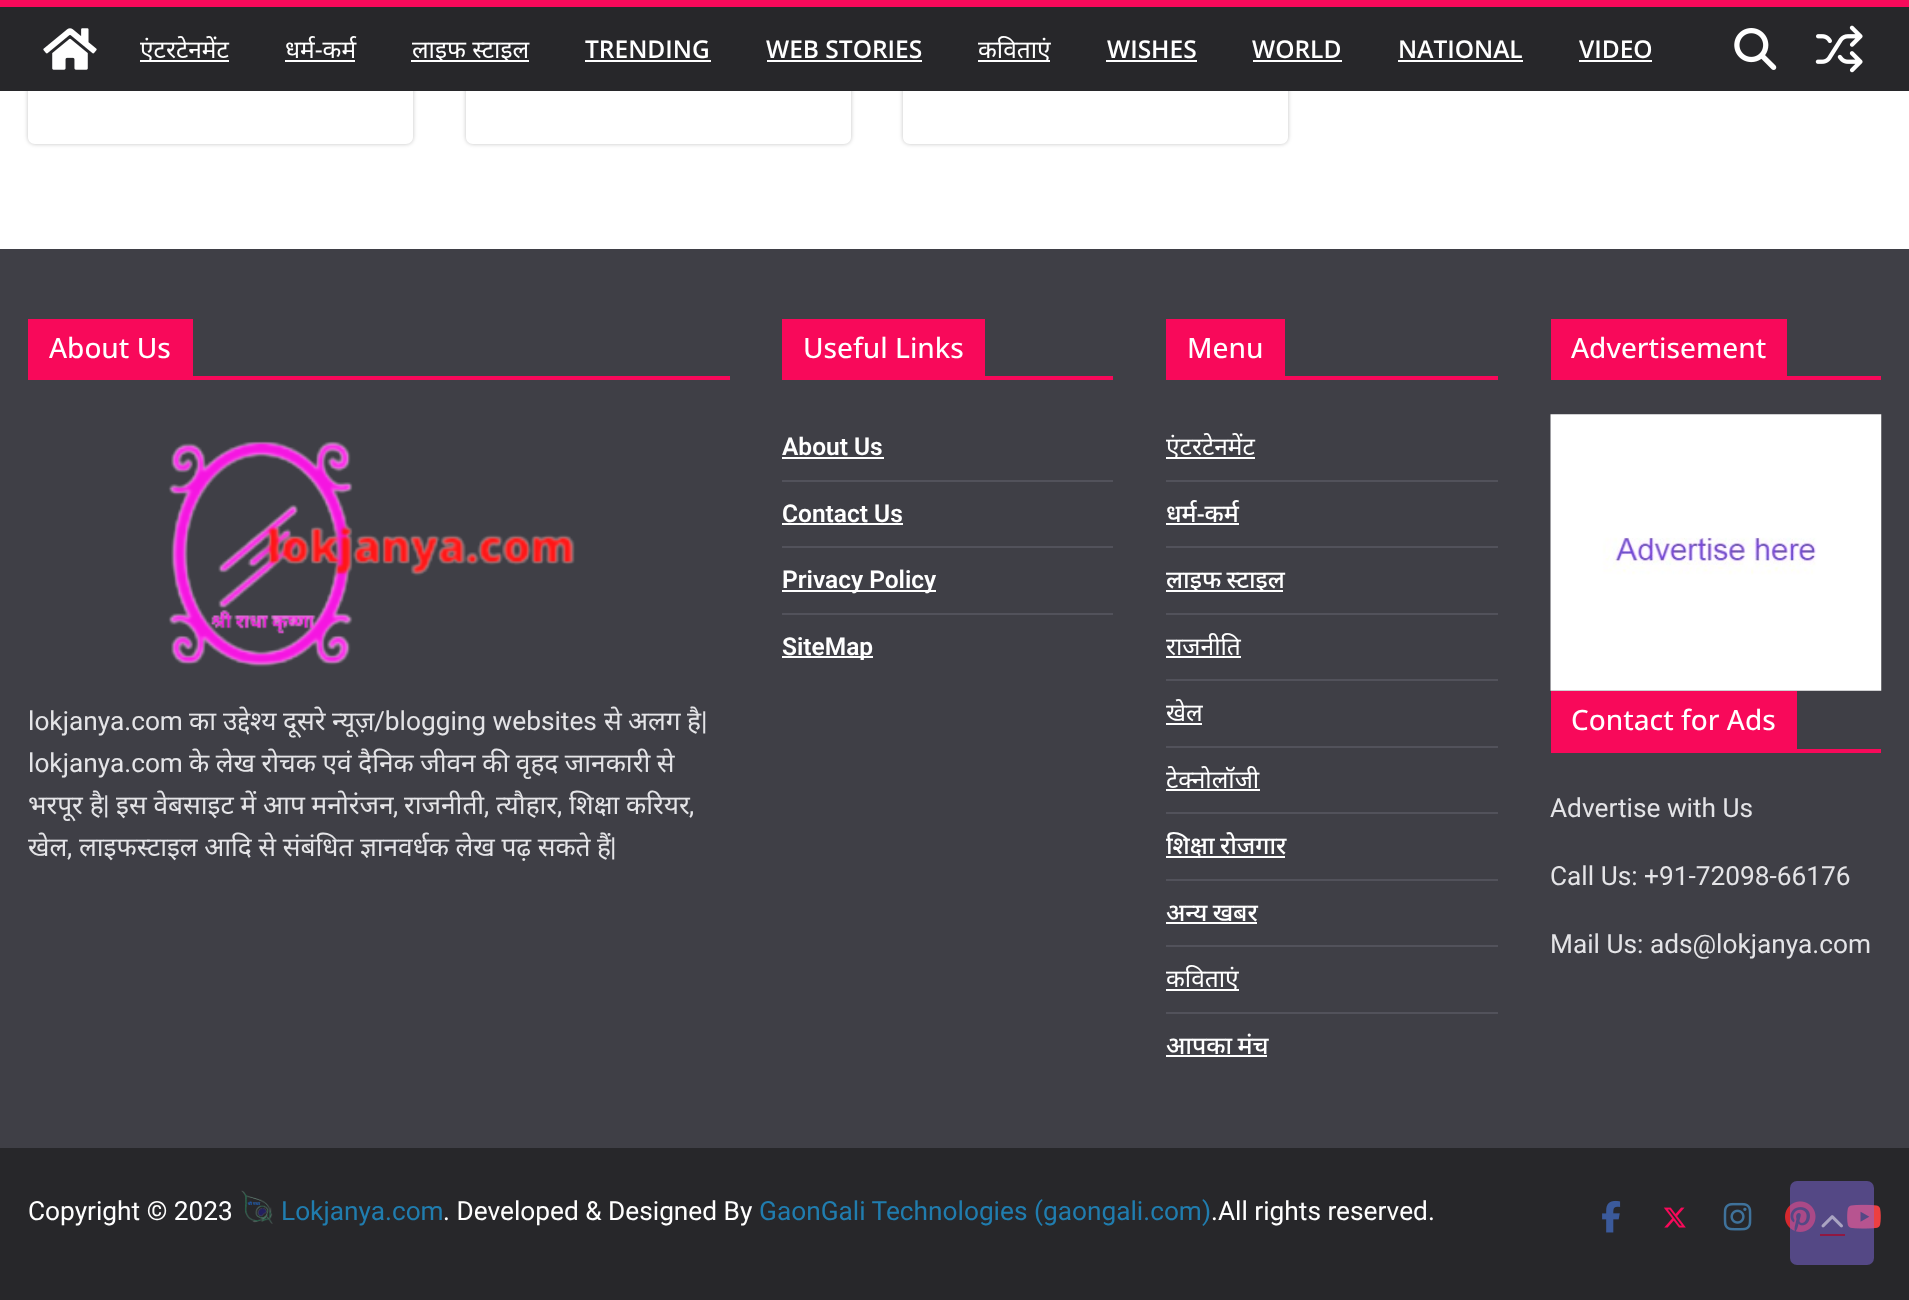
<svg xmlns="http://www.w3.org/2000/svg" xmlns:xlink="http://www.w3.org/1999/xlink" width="1909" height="1300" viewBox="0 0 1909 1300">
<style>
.cls-1{font:24.5px Noto Sans;fill:#ffffff}
.cls-2{font:600 24.5px Open Sans;fill:#ffffff}
.cls-3{font:500 28px Open Sans;fill:#ffffff}
.cls-4{font:26.25px Roboto;fill:#e4e4e7}
.cls-5{font:26.25px Noto Sans;fill:#e4e4e7}
.cls-6{font:600 24.5px Roboto;fill:#ffffff}
.cls-7{font:500 24.5px Noto Sans;fill:#ffffff}
.cls-8{font:26.25px Roboto;fill:#ffffff}
.cls-9{font:26.25px Roboto;fill:#207daf}
</style>
<defs>
<clipPath id="clip1"><path d="M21 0H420V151H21ZM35-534H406C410-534 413-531 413-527V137C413 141 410 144 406 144H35C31 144 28 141 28 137V-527C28-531 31-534 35-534Z" clip-rule="evenodd"/></clipPath>
<clipPath id="clip2"><path d="M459 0H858V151H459ZM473-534H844C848-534 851-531 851-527V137C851 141 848 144 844 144H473C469 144 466 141 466 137V-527C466-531 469-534 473-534Z" clip-rule="evenodd"/></clipPath>
<clipPath id="clip3"><path d="M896 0H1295V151H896ZM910-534H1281C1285-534 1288-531 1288-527V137C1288 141 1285 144 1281 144H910C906 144 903 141 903 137V-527C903-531 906-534 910-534Z" clip-rule="evenodd"/></clipPath>
</defs>
<rect width="100%" height="100%" fill="#ffffff"/>
<g clip-path="url(#clip1)">
<rect fill="#000000" fill-opacity="0.24" filter="blur(2px)" x="28" y="-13" width="385" height="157" rx="7"/>
</g>
<g clip-path="url(#clip2)">
<rect fill="#000000" fill-opacity="0.24" filter="blur(2px)" x="466" y="-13" width="385" height="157" rx="7"/>
</g>
<g clip-path="url(#clip3)">
<rect fill="#000000" fill-opacity="0.24" filter="blur(2px)" x="903" y="-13" width="385" height="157" rx="7"/>
</g>
<rect fill="#27272a" x="0" y="7" width="1909" height="84"/>
<rect fill="#f8095a" x="0" y="0" width="1909" height="7"/>
<image xlink:href="image0.png" x="43" y="28" width="54" height="42"/>
<rect fill="#ffffff" x="140" y="60" width="89" height="2"/>
<rect fill="#ffffff" x="285" y="60" width="70" height="2"/>
<rect fill="#ffffff" x="411" y="60" width="118" height="2"/>
<rect fill="#ffffff" x="585" y="60" width="126" height="2"/>
<rect fill="#ffffff" x="767" y="60" width="155" height="2"/>
<rect fill="#ffffff" x="978" y="60" width="72" height="2"/>
<rect fill="#ffffff" x="1106" y="60" width="91" height="2"/>
<rect fill="#ffffff" x="1253" y="60" width="89" height="2"/>
<rect fill="#ffffff" x="1398" y="60" width="125" height="2"/>
<rect fill="#ffffff" x="1579" y="60" width="73" height="2"/>
<image xlink:href="image1.png" x="1734" y="28" width="43" height="42"/>
<image xlink:href="image2.png" x="1815" y="25" width="48" height="48"/>
<rect fill="#3f3f46" x="0" y="249" width="1909" height="899"/>
<rect fill="#f8095a" x="28" y="376" width="702" height="4"/>
<rect fill="#f8095a" x="28" y="319" width="165" height="57"/>
<image xlink:href="image3.png" x="168" y="441" width="407" height="226"/>
<rect fill="#f8095a" x="782" y="376" width="331" height="4"/>
<rect fill="#f8095a" x="782" y="319" width="203" height="57"/>
<rect fill="#52525b" x="782" y="480" width="331" height="2"/>
<rect fill="#ffffff" x="782" y="457" width="102" height="2"/>
<rect fill="#52525b" x="782" y="546" width="331" height="2"/>
<rect fill="#ffffff" x="782" y="523" width="121" height="2"/>
<rect fill="#52525b" x="782" y="613" width="331" height="2"/>
<rect fill="#ffffff" x="782" y="590" width="154" height="2"/>
<rect fill="#ffffff" x="782" y="656" width="91" height="2"/>
<rect fill="#f8095a" x="1166" y="376" width="332" height="4"/>
<rect fill="#f8095a" x="1166" y="319" width="119" height="57"/>
<rect fill="#52525b" x="1166" y="480" width="332" height="2"/>
<rect fill="#ffffff" x="1166" y="457" width="89" height="2"/>
<rect fill="#52525b" x="1166" y="546" width="332" height="2"/>
<rect fill="#ffffff" x="1166" y="523" width="73" height="2"/>
<rect fill="#52525b" x="1166" y="613" width="332" height="2"/>
<rect fill="#ffffff" x="1166" y="590" width="117" height="2"/>
<rect fill="#52525b" x="1166" y="679" width="332" height="2"/>
<rect fill="#ffffff" x="1166" y="656" width="75" height="2"/>
<rect fill="#52525b" x="1166" y="746" width="332" height="2"/>
<rect fill="#ffffff" x="1166" y="723" width="36" height="2"/>
<rect fill="#52525b" x="1166" y="812" width="332" height="2"/>
<rect fill="#ffffff" x="1166" y="789" width="94" height="2"/>
<rect fill="#52525b" x="1166" y="879" width="332" height="2"/>
<rect fill="#ffffff" x="1166" y="856" width="119" height="2"/>
<rect fill="#52525b" x="1166" y="945" width="332" height="2"/>
<rect fill="#ffffff" x="1166" y="922" width="91" height="2"/>
<rect fill="#52525b" x="1166" y="1012" width="332" height="2"/>
<rect fill="#ffffff" x="1166" y="989" width="73" height="2"/>
<rect fill="#ffffff" x="1166" y="1055" width="101" height="2"/>
<rect fill="#f8095a" x="1551" y="376" width="330" height="4"/>
<rect fill="#f8095a" x="1551" y="319" width="236" height="57"/>
<image xlink:href="image4.png" x="1550" y="414" width="332" height="277"/>
<rect fill="#f8095a" x="1551" y="749" width="330" height="4"/>
<rect fill="#f8095a" x="1551" y="691" width="246" height="58"/>
<rect fill="#27272a" x="0" y="1148" width="1909" height="152"/>
<image xlink:href="image5.png" x="241" y="1190" width="32" height="34"/>
<image xlink:href="image6.png" x="1602" y="1200" width="19" height="33"/>
<image xlink:href="image7.png" x="1663" y="1207" width="23" height="21"/>
<image xlink:href="image8.png" x="1723" y="1202" width="29" height="29"/>
<image xlink:href="image9.png" x="1785" y="1201" width="31" height="31"/>
<image xlink:href="image10.png" x="1847" y="1204" width="34" height="25"/>
<rect fill="#8269df" fill-opacity="0.5" x="1790" y="1181" width="84" height="84" rx="7"/>
<rect fill="#901842" x="1820" y="1234" width="25" height="2"/>
<image xlink:href="image11.png" x="1821" y="1215" width="22" height="13"/>
<text class="cls-1" x="140" y="58">एंटरटेनमेंट</text>
<text class="cls-1" x="285" y="58">धर्म-कर्म</text>
<text class="cls-1" x="412" y="58">लाइफ स्टाइल</text>
<text class="cls-2" x="585" y="58">TRENDING</text>
<text class="cls-2" x="766" y="58">WEB STORIES</text>
<text class="cls-1" x="978" y="58">कविताएं</text>
<text class="cls-2" x="1107" y="58">WISHES</text>
<text class="cls-2" x="1252" y="58">WORLD</text>
<text class="cls-2" x="1398" y="58">NATIONAL</text>
<text class="cls-2" x="1579" y="58">VIDEO</text>
<text class="cls-3" x="49" y="358">About Us</text>
<text class="cls-4" x="28" y="730">lokjanya.com</text>
<text class="cls-5" x="189" y="730">का</text>
<text class="cls-5" x="223" y="730">उद्देश्य</text>
<text class="cls-5" x="283" y="730">दूसरे</text>
<text class="cls-5" x="332" y="730">न्यूज़</text>
<text class="cls-4" x="374" y="730">/blogging websites</text>
<text class="cls-5" x="604" y="730">से</text>
<text class="cls-5" x="628" y="730">अलग</text>
<text class="cls-5" x="687" y="730">है</text>
<text class="cls-4" x="701" y="730">|</text>
<text class="cls-4" x="28" y="772">lokjanya.com</text>
<text class="cls-5" x="189" y="772" word-spacing="-0.25">के लेख रोचक एवं दैनिक जीवन की वृहद जानकारी से</text>
<text class="cls-5" x="28" y="814">भरपूर है</text>
<text class="cls-4" x="103" y="814">|</text>
<text class="cls-5" x="116" y="814">इस वेबसाइट में आप मनोरंजन</text>
<text class="cls-4" x="393" y="814">,</text>
<text class="cls-5" x="404" y="814">राजनीती</text>
<text class="cls-4" x="484" y="814">,</text>
<text class="cls-5" x="496" y="814">त्यौहार</text>
<text class="cls-4" x="557" y="814">,</text>
<text class="cls-5" x="569" y="814">शिक्षा करियर</text>
<text class="cls-4" x="689" y="814">,</text>
<text class="cls-5" x="28" y="856">खेल</text>
<text class="cls-4" x="67" y="856">,</text>
<text class="cls-5" x="79" y="856" word-spacing="-0.25">लाइफस्टाइल आदि से संबंधित ज्ञानवर्धक लेख पढ़ सकते हैं</text>
<text class="cls-4" x="610" y="856">|</text>
<text class="cls-3" x="803" y="358">Useful Links</text>
<text class="cls-6" x="782" y="455">About Us</text>
<text class="cls-6" x="782" y="522">Contact Us</text>
<text class="cls-6" x="782" y="588">Privacy Policy</text>
<text class="cls-6" x="782" y="655">SiteMap</text>
<text class="cls-3" x="1187" y="358">Menu</text>
<text class="cls-1" x="1166" y="455">एंटरटेनमेंट</text>
<text class="cls-7" x="1166" y="522">धर्म-कर्म</text>
<text class="cls-7" x="1166" y="588" word-spacing="-1">लाइफ स्टाइल</text>
<text class="cls-1" x="1166" y="655">राजनीति</text>
<text class="cls-1" x="1166" y="721">खेल</text>
<text class="cls-1" x="1166" y="788">टेक्नोलॉजी</text>
<text class="cls-7" x="1166" y="854" word-spacing="-1">शिक्षा रोजगार</text>
<text class="cls-7" x="1166" y="921" word-spacing="-1">अन्य खबर</text>
<text class="cls-1" x="1166" y="987">कविताएं</text>
<text class="cls-7" x="1166" y="1054" word-spacing="-1">आपका मंच</text>
<text class="cls-3" x="1571" y="358">Advertisement</text>
<text class="cls-3" x="1571" y="730">Contact for Ads</text>
<text class="cls-4" x="1550" y="817">Advertise with Us</text>
<text class="cls-4" x="1550" y="885">Call Us: +91-72098-66176</text>
<text class="cls-4" x="1550" y="953">Mail Us: ads@lokjanya.com</text>
<text class="cls-8" x="28" y="1220">Copyright © 2023</text>
<text class="cls-9" x="281" y="1220">Lokjanya.com</text>
<text class="cls-8" x="443" y="1220">. Developed &amp; Designed By</text>
<text class="cls-9" x="759" y="1220">GaonGali Technologies (gaongali.com)</text>
<text class="cls-8" x="1211" y="1220">.All rights reserved.</text>
</svg>
